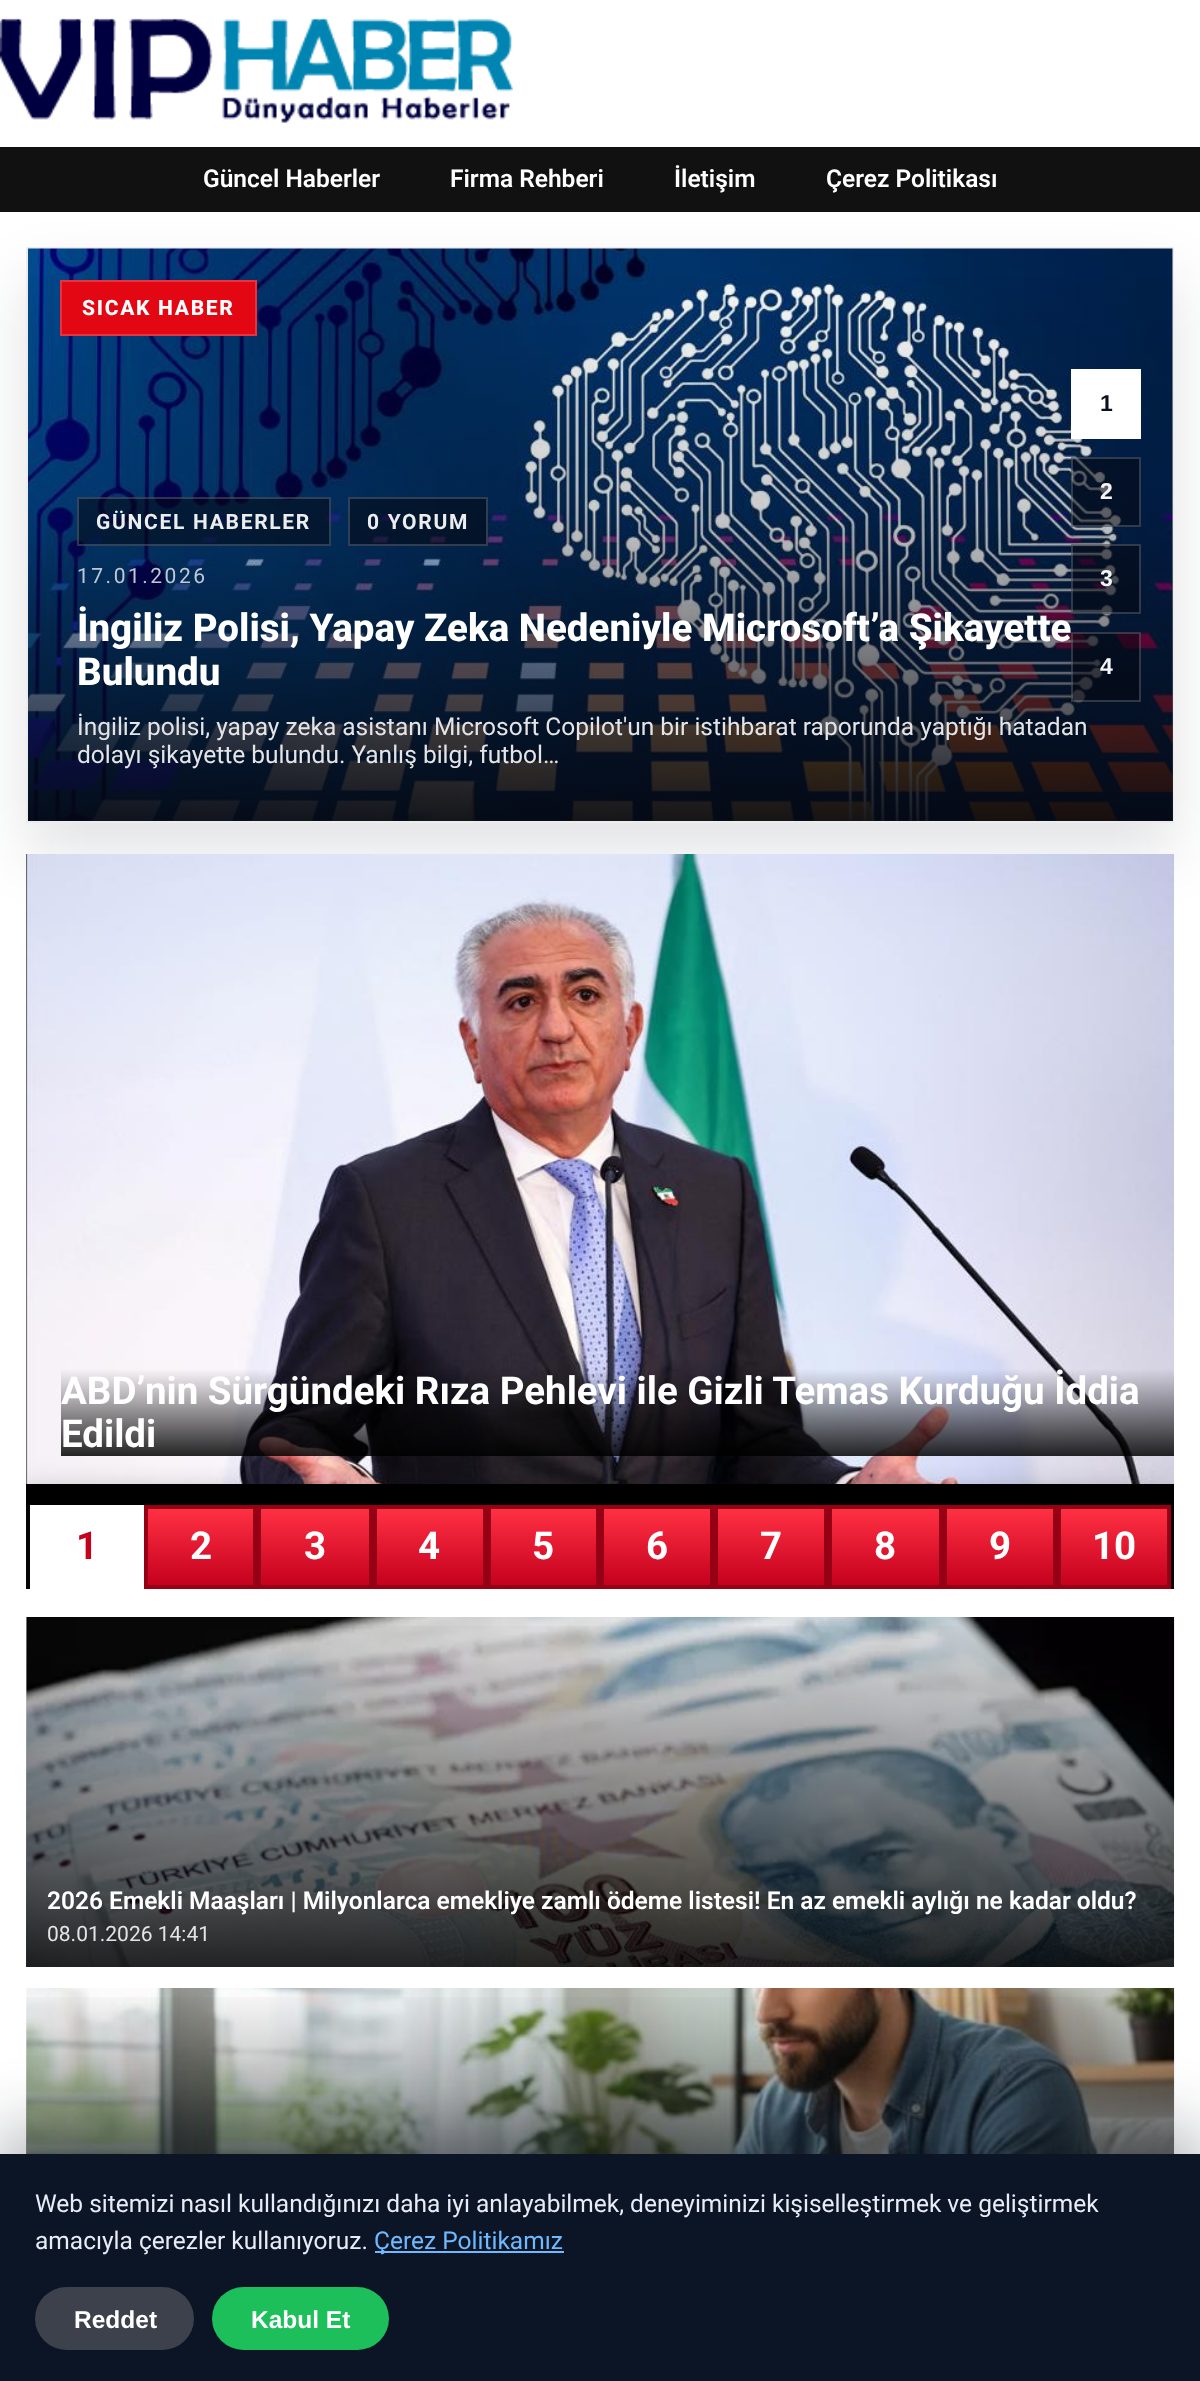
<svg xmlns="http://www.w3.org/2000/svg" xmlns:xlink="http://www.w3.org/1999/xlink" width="1200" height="2381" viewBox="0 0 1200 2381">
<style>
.cls-1{font:600 24.5px Roboto;fill:#ffffff}
.cls-2{font:800 21px Roboto;letter-spacing:1.7px;fill:#ffffff}
.cls-3{font:bold 21px Roboto;letter-spacing:1.7px;fill:#ebedef}
.cls-4{font:21px Roboto;letter-spacing:2.5px;fill:#c0c8d4}
.cls-5{font:800 38.5px Roboto;fill:#ffffff}
.cls-6{font:24.5px Roboto;fill:#e4e4e6}
.cls-7{font:bold 23px Liberation Sans;fill:#0b1120}
.cls-8{font:bold 23px Liberation Sans;fill:#f4f5f6}
.cls-9{font:bold 38.5px Roboto;fill:#ffffff}
.cls-10{font:bold 38.5px Roboto;fill:#c4001d}
.cls-11{font:21px Roboto;fill:#e4e4e6}
.cls-12{font:24.5px Roboto;fill:#e7ecf6}
.cls-13{font:24.5px Roboto;fill:#6fb9ff}
.cls-14{font:bold 24.5px Liberation Sans;fill:#ffffff}
</style>
<defs>
<linearGradient id="g1" gradientUnits="userSpaceOnUse" x1="600" y1="821" x2="600" y2="249"><stop offset="0" stop-color="#050710" stop-opacity="0.92"/><stop offset="0.55" stop-color="#050710" stop-opacity="0.2"/><stop offset="1" stop-color="#050710" stop-opacity="0"/></linearGradient>
<linearGradient id="g2" gradientUnits="userSpaceOnUse" x1="600" y1="1967" x2="600" y2="1617"><stop offset="0" stop-color="#000000" stop-opacity="0.85"/><stop offset="1" stop-color="#000000" stop-opacity="0"/></linearGradient>
<clipPath id="clip1"><rect x="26" y="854" width="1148" height="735"/></clipPath>
<linearGradient id="g3" gradientUnits="userSpaceOnUse" x1="200" y1="1509" x2="200" y2="1586"><stop offset="0" stop-color="#ff3043"/><stop offset="1" stop-color="#c4001d"/></linearGradient>
<linearGradient id="g4" gradientUnits="userSpaceOnUse" x1="315" y1="1509" x2="315" y2="1586"><stop offset="0" stop-color="#ff3043"/><stop offset="1" stop-color="#c4001d"/></linearGradient>
<linearGradient id="g5" gradientUnits="userSpaceOnUse" x1="430" y1="1509" x2="430" y2="1586"><stop offset="0" stop-color="#ff3043"/><stop offset="1" stop-color="#c4001d"/></linearGradient>
<linearGradient id="g6" gradientUnits="userSpaceOnUse" x1="543" y1="1509" x2="543" y2="1586"><stop offset="0" stop-color="#ff3043"/><stop offset="1" stop-color="#c4001d"/></linearGradient>
<linearGradient id="g7" gradientUnits="userSpaceOnUse" x1="657" y1="1509" x2="657" y2="1586"><stop offset="0" stop-color="#ff3043"/><stop offset="1" stop-color="#c4001d"/></linearGradient>
<linearGradient id="g8" gradientUnits="userSpaceOnUse" x1="771" y1="1509" x2="771" y2="1586"><stop offset="0" stop-color="#ff3043"/><stop offset="1" stop-color="#c4001d"/></linearGradient>
<linearGradient id="g9" gradientUnits="userSpaceOnUse" x1="886" y1="1509" x2="886" y2="1586"><stop offset="0" stop-color="#ff3043"/><stop offset="1" stop-color="#c4001d"/></linearGradient>
<linearGradient id="g10" gradientUnits="userSpaceOnUse" x1="1000" y1="1509" x2="1000" y2="1586"><stop offset="0" stop-color="#ff3043"/><stop offset="1" stop-color="#c4001d"/></linearGradient>
<linearGradient id="g11" gradientUnits="userSpaceOnUse" x1="1114" y1="1509" x2="1114" y2="1586"><stop offset="0" stop-color="#ff3043"/><stop offset="1" stop-color="#c4001d"/></linearGradient>
<linearGradient id="g12" gradientUnits="userSpaceOnUse" x1="600" y1="2338" x2="600" y2="1988"><stop offset="0" stop-color="#000000" stop-opacity="0.85"/><stop offset="1" stop-color="#000000" stop-opacity="0"/></linearGradient>
</defs>
<rect width="100%" height="100%" fill="#ffffff"/>
<image xlink:href="image0.png" x="0" y="17" width="513" height="106"/>
<rect fill="#111111" x="0" y="147" width="1200" height="65"/>
<rect fill="#101828" fill-opacity="0.12" filter="blur(30.5px)" x="26" y="278" width="1148" height="576"/>
<rect fill="none" stroke="#ececee" stroke-width="2" x="27" y="248" width="1146" height="574"/>
<image xlink:href="image1.png" x="28" y="248" width="1145" height="573"/>
<rect fill="url(#g1)" x="28" y="277" width="1145" height="544"/>
<rect fill="#e30613" stroke="#e8333d" stroke-width="2" x="61" y="281" width="195" height="54"/>
<rect fill="#050710" fill-opacity="0.55" x="77" y="497" width="254" height="49"/>
<rect fill="none" stroke="#ffffff" stroke-opacity="0.18" stroke-width="2" x="78" y="498" width="252" height="47"/>
<rect fill="#050710" fill-opacity="0.55" x="348" y="497" width="140" height="49"/>
<rect fill="none" stroke="#ffffff" stroke-opacity="0.18" stroke-width="2" x="349" y="498" width="138" height="47"/>
<rect fill="#ffffff" x="1071" y="369" width="70" height="70"/>
<rect fill="#050710" fill-opacity="0.55" x="1071" y="457" width="70" height="70"/>
<rect fill="none" stroke="#ffffff" stroke-opacity="0.18" stroke-width="2" x="1072" y="458" width="68" height="68"/>
<rect fill="#050710" fill-opacity="0.55" x="1071" y="544" width="70" height="70"/>
<rect fill="none" stroke="#ffffff" stroke-opacity="0.18" stroke-width="2" x="1072" y="545" width="68" height="68"/>
<rect fill="#050710" fill-opacity="0.55" x="1071" y="632" width="70" height="70"/>
<rect fill="none" stroke="#ffffff" stroke-opacity="0.18" stroke-width="2" x="1072" y="633" width="68" height="68"/>
<rect fill="#000000" x="26" y="854" width="1148" height="651"/>
<image xlink:href="image2.png" x="26" y="854" width="1148" height="630"/>
<image xlink:href="image3.png" x="26" y="1617" width="1149" height="350"/>
<rect fill="url(#g2)" x="26" y="1626" width="1148" height="341"/>
<g clip-path="url(#clip1)">
<rect fill="#000000" fill-opacity="0.35" filter="blur(16px)" x="26" y="1495" width="1148" height="84"/>
</g>
<rect fill="#050505" x="26" y="1505" width="1148" height="84"/>
<rect fill="#ffffff" x="30" y="1505" width="114" height="84"/>
<rect fill="url(#g3)" x="148" y="1509" width="105" height="76"/>
<rect fill="none" stroke="#950014" stroke-width="4" x="146" y="1507" width="109" height="80"/>
<rect fill="url(#g4)" x="261" y="1509" width="108" height="76"/>
<rect fill="none" stroke="#950014" stroke-width="4" x="259" y="1507" width="112" height="80"/>
<rect fill="url(#g5)" x="377" y="1509" width="106" height="76"/>
<rect fill="none" stroke="#950014" stroke-width="4" x="375" y="1507" width="110" height="80"/>
<rect fill="url(#g6)" x="491" y="1509" width="105" height="76"/>
<rect fill="none" stroke="#950014" stroke-width="4" x="489" y="1507" width="109" height="80"/>
<rect fill="url(#g7)" x="604" y="1509" width="106" height="76"/>
<rect fill="none" stroke="#950014" stroke-width="4" x="602" y="1507" width="110" height="80"/>
<rect fill="url(#g8)" x="718" y="1509" width="106" height="76"/>
<rect fill="none" stroke="#950014" stroke-width="4" x="716" y="1507" width="110" height="80"/>
<rect fill="url(#g9)" x="832" y="1509" width="107" height="76"/>
<rect fill="none" stroke="#950014" stroke-width="4" x="830" y="1507" width="111" height="80"/>
<rect fill="url(#g10)" x="947" y="1509" width="106" height="76"/>
<rect fill="none" stroke="#950014" stroke-width="4" x="945" y="1507" width="110" height="80"/>
<rect fill="url(#g11)" x="1061" y="1509" width="106" height="76"/>
<rect fill="none" stroke="#950014" stroke-width="4" x="1059" y="1507" width="110" height="80"/>
<image xlink:href="image4.png" x="26" y="1988" width="1149" height="166"/>
<rect fill="url(#g12)" x="26" y="1997" width="1148" height="157"/>
<rect fill="#0c1522" fill-opacity="0.35" filter="blur(35px)" x="0" y="2133" width="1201" height="228"/>
<rect fill="#0b1526" x="0" y="2154" width="1200" height="227"/>
<rect fill="#6fb9ff" x="375" y="2251" width="189" height="2"/>
<rect fill="#3c414b" x="35" y="2287" width="159" height="63" rx="31.5"/>
<rect fill="#1dbf5b" x="212" y="2287" width="177" height="63" rx="31.5"/>
<text class="cls-1" x="203" y="187">Güncel Haberler</text>
<text class="cls-1" x="450" y="187">Firma Rehberi</text>
<text class="cls-1" x="674" y="187">İletişim</text>
<text class="cls-1" x="826" y="187">Çerez Politikası</text>
<text class="cls-2" x="82" y="315">SICAK HABER</text>
<text class="cls-3" x="96" y="529">GÜNCEL HABERLER</text>
<text class="cls-3" x="367" y="529">0 YORUM</text>
<text class="cls-4" x="77" y="583">17.01.2026</text>
<text class="cls-5"><tspan x="77" y="641">İngiliz Polisi, Yapay Zeka Nedeniyle Microsoft’a Şikayette</tspan><tspan x="77" y="685">Bulundu</tspan></text>
<text class="cls-6"><tspan x="77" y="735">İngiliz polisi, yapay zeka asistanı Microsoft Copilot'un bir istihbarat raporunda yaptığı hatadan</tspan><tspan x="77" y="763">dolayı şikayette bulundu. Yanlış bilgi, futbol…</tspan></text>
<text class="cls-7" x="1100" y="411">1</text>
<text class="cls-8" x="1100" y="499">2</text>
<text class="cls-8" x="1100" y="586">3</text>
<text class="cls-8" x="1100" y="674">4</text>
<text class="cls-9"><tspan x="61" y="1404">ABD’nin Sürgündeki Rıza Pehlevi ile Gizli Temas Kurduğu İddia</tspan><tspan x="61" y="1447">Edildi</tspan></text>
<text class="cls-10" x="76" y="1559">1</text>
<text class="cls-9" x="190" y="1559">2</text>
<text class="cls-9" x="304" y="1559">3</text>
<text class="cls-9" x="418" y="1559">4</text>
<text class="cls-9" x="532" y="1559">5</text>
<text class="cls-9" x="646" y="1559">6</text>
<text class="cls-9" x="760" y="1559">7</text>
<text class="cls-9" x="874" y="1559">8</text>
<text class="cls-9" x="989" y="1559">9</text>
<text class="cls-9" x="1092" y="1559">10</text>
<text class="cls-1" x="47" y="1909">2026 Emekli Maaşları | Milyonlarca emekliye zamlı ödeme listesi! En az emekli aylığı ne kadar oldu?</text>
<text class="cls-11" x="47" y="1941">08.01.2026 14:41</text>
<text class="cls-12"><tspan x="35" y="2212">Web sitemizi nasıl kullandığınızı daha iyi anlayabilmek, deneyiminizi kişiselleştirmek ve geliştirmek</tspan><tspan x="35" y="2249">amacıyla çerezler kullanıyoruz.</tspan></text>
<text class="cls-13" x="374" y="2249">Çerez Politikamız</text>
<text class="cls-14" x="74" y="2328">Reddet</text>
<text class="cls-14" x="251" y="2328">Kabul Et</text>
</svg>
